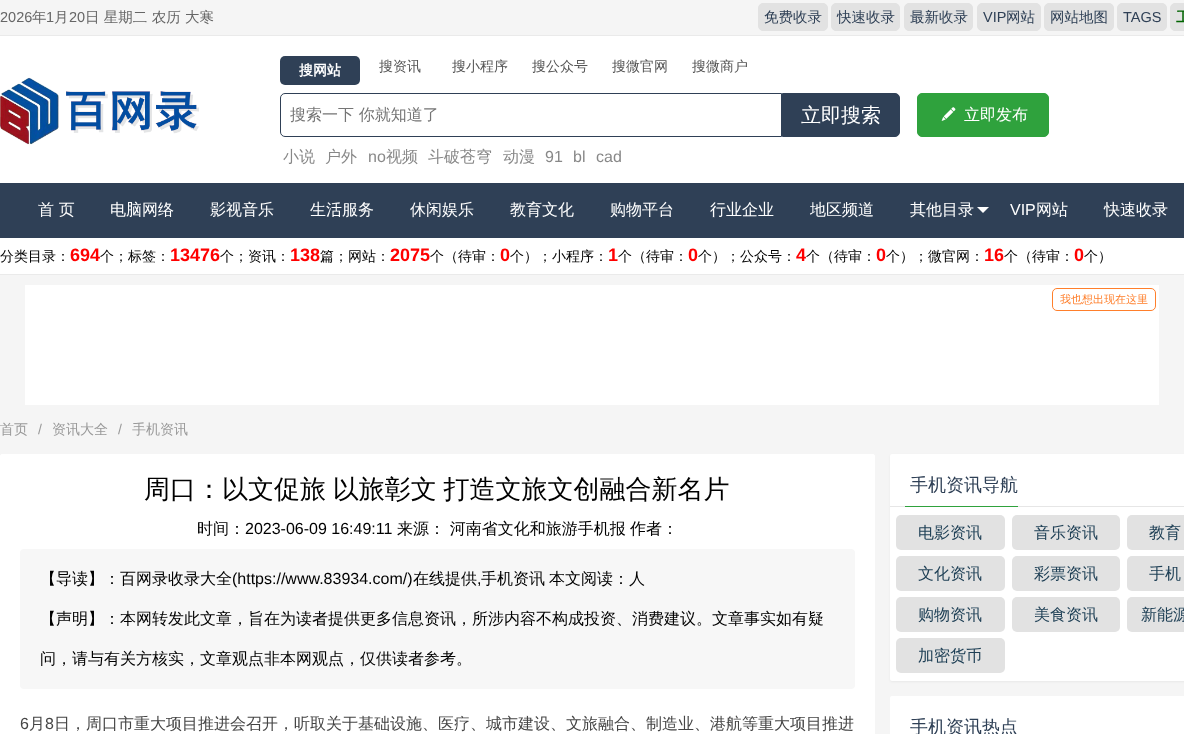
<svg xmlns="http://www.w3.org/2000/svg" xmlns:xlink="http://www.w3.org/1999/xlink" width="1184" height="734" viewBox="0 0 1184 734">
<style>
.cls-1{font:14.5px Liberation Sans;fill:#666666}
.cls-2{font:500 14.5px WenQuanYi Zen Hei;fill:#666666}
.cls-3{font:500 14.5px WenQuanYi Zen Hei;fill:#2f4056}
.cls-4{font:14.5px Liberation Sans;fill:#2f4056}
.cls-5{font:bold 14.5px WenQuanYi Zen Hei;fill:#006400}
.cls-6{font:bold 14px WenQuanYi Zen Hei;fill:#ffffff}
.cls-7{font:500 14px WenQuanYi Zen Hei;fill:#555555}
.cls-8{font:500 16px WenQuanYi Zen Hei;fill:#757575}
.cls-9{font:500 20px WenQuanYi Zen Hei;fill:#ffffff}
.cls-10{font:500 16px WenQuanYi Zen Hei;fill:#ffffff}
.cls-11{font:500 16px WenQuanYi Zen Hei;fill:#888888}
.cls-12{font:16px Liberation Sans;fill:#888888}
.cls-13{font:16px Liberation Sans;fill:#ffffff}
.cls-14{font:500 14px WenQuanYi Zen Hei;fill:#000000}
.cls-15{font:bold 18px Liberation Sans;fill:#ff0000}
.cls-16{font:500 11px WenQuanYi Zen Hei;fill:#ff7f2b}
.cls-17{font:500 14px WenQuanYi Zen Hei;fill:#999999}
.cls-18{font:14px Liberation Sans;fill:#999999}
.cls-19{font:500 26px WenQuanYi Zen Hei;fill:#000000}
.cls-20{font:500 16px WenQuanYi Zen Hei;fill:#000000}
.cls-21{font:16px Liberation Sans;fill:#000000}
.cls-22{font:16px Liberation Sans;fill:#454545}
.cls-23{font:500 16px WenQuanYi Zen Hei;fill:#454545}
.cls-24{font:500 18px WenQuanYi Zen Hei;fill:#2f4056}
.cls-25{font:500 16px WenQuanYi Zen Hei;fill:#1f4056}
</style>
<rect width="100%" height="100%" fill="#f5f5f5"/>
<rect fill="#ffffff" x="0" y="36" width="1184" height="238"/>
<rect fill="#eaeaea" x="0" y="274" width="1184" height="1"/>
<rect fill="#eaeaea" x="0" y="35" width="1184" height="1"/>
<rect fill="#e2e2e2" stroke="#e2e2e2" x="758.5" y="3.5" width="69" height="27" rx="4.5"/>
<rect fill="#e2e2e2" stroke="#e2e2e2" x="831.5" y="3.5" width="68" height="27" rx="4.5"/>
<rect fill="#e2e2e2" stroke="#e2e2e2" x="904.5" y="3.5" width="68" height="27" rx="4.5"/>
<rect fill="#e2e2e2" stroke="#e2e2e2" x="977.5" y="3.5" width="63" height="27" rx="4.5"/>
<rect fill="#e2e2e2" stroke="#e2e2e2" x="1044.5" y="3.5" width="69" height="27" rx="4.5"/>
<rect fill="#e2e2e2" stroke="#e2e2e2" x="1117.5" y="3.5" width="49" height="27" rx="4.5"/>
<rect fill="#e2e2e2" stroke="#e2e2e2" x="1170.5" y="3.5" width="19" height="27" rx="4.5"/>
<image xlink:href="image0.png" x="0" y="77" width="199" height="68"/>
<rect fill="#2f4056" x="280" y="56" width="80" height="29" rx="5"/>
<path fill="none" stroke="#2f4056" d="M285 93.5H781.5V136.5H285C282.5 136.5 280.5 134.5 280.5 132V98C280.5 95.5 282.5 93.5 285 93.5Z"/>
<path fill="#2f4056" stroke="#2f4056" d="M782.5 93.5H895C897.5 93.5 899.5 95.5 899.5 98V132C899.5 134.5 897.5 136.5 895 136.5H782.5Z"/>
<rect fill="#2fa23d" stroke="#2fa23d" x="917.5" y="93.5" width="131" height="43" rx="4.5"/>
<image xlink:href="image1.png" x="941" y="107" width="15" height="14"/>
<rect fill="#2f4056" x="0" y="183" width="1184" height="55"/>
<path fill="#ffffff" d="M977 207H989L983 213Z"/>
<rect fill="#ffffff" x="25" y="285" width="1134" height="120"/>
<rect fill="none" stroke="#ff7f2b" x="1052.5" y="288.5" width="103" height="22" rx="4.5"/>
<path fill="#ffffff" d="M2 454H873C874 454 875 455 875 456V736H0V456C0 455 1 454 2 454Z"/>
<rect fill="#f7f7f7" x="20" y="549" width="835" height="140" rx="4"/>
<rect fill="#000000" fill-opacity="0.05" filter="blur(1px)" x="890" y="455" width="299" height="227" rx="2"/>
<rect fill="#ffffff" x="890" y="454" width="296" height="227" rx="2"/>
<rect fill="#e6e6e6" x="890" y="506" width="294" height="1"/>
<rect fill="#2fa23d" x="905" y="506" width="113" height="1"/>
<rect fill="#e2e2e2" x="896" y="515" width="109" height="35" rx="5"/>
<rect fill="#e2e2e2" x="1012" y="515" width="108" height="35" rx="5"/>
<rect fill="#e2e2e2" x="1127" y="515" width="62" height="35" rx="5"/>
<rect fill="#e2e2e2" x="896" y="556" width="109" height="35" rx="5"/>
<rect fill="#e2e2e2" x="1012" y="556" width="108" height="35" rx="5"/>
<rect fill="#e2e2e2" x="1127" y="556" width="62" height="35" rx="5"/>
<rect fill="#e2e2e2" x="896" y="597" width="109" height="35" rx="5"/>
<rect fill="#e2e2e2" x="1012" y="597" width="108" height="35" rx="5"/>
<rect fill="#e2e2e2" x="1127" y="597" width="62" height="35" rx="5"/>
<rect fill="#e2e2e2" x="896" y="638" width="109" height="35" rx="5"/>
<rect fill="#ffffff" x="890" y="696" width="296" height="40" rx="2"/>
<text class="cls-1" x="0" y="22">2026</text>
<text class="cls-2" x="32" y="22">年</text>
<text class="cls-1" x="46" y="22">1</text>
<text class="cls-2" x="54" y="22">月</text>
<text class="cls-1" x="69" y="22">20</text>
<text class="cls-2" x="85" y="22">日 星期二 农历 大寒</text>
<text class="cls-3" x="764" y="22">免费收录</text>
<text class="cls-3" x="837" y="22">快速收录</text>
<text class="cls-3" x="910" y="22">最新收录</text>
<text class="cls-4" x="983" y="22">VIP</text>
<text class="cls-3" x="1006" y="22">网站</text>
<text class="cls-3" x="1050" y="22">网站地图</text>
<text class="cls-4" x="1123" y="22">TAGS</text>
<text class="cls-5" x="1176" y="22">工</text>
<text class="cls-6" x="299" y="75">搜网站</text>
<text class="cls-7" x="379" y="71">搜资讯</text>
<text class="cls-7" x="452" y="71">搜小程序</text>
<text class="cls-7" x="532" y="71">搜公众号</text>
<text class="cls-7" x="612" y="71">搜微官网</text>
<text class="cls-7" x="692" y="71">搜微商户</text>
<text class="cls-8" x="290" y="120">搜索一下 你就知道了</text>
<text class="cls-9" x="801" y="122">立即搜索</text>
<text class="cls-10" x="964" y="120">立即发布</text>
<text class="cls-11" x="283" y="162">小说</text>
<text class="cls-11" x="325" y="162">户外</text>
<text class="cls-12" x="368" y="162">no</text>
<text class="cls-11" x="386" y="162">视频</text>
<text class="cls-11" x="428" y="162">斗破苍穹</text>
<text class="cls-11" x="503" y="162">动漫</text>
<text class="cls-12" x="545" y="162">91</text>
<text class="cls-12" x="573" y="162">bl</text>
<text class="cls-12" x="596" y="162">cad</text>
<text class="cls-10" x="38" y="215">首 页</text>
<text class="cls-10" x="110" y="215">电脑网络</text>
<text class="cls-10" x="210" y="215">影视音乐</text>
<text class="cls-10" x="310" y="215">生活服务</text>
<text class="cls-10" x="410" y="215">休闲娱乐</text>
<text class="cls-10" x="510" y="215">教育文化</text>
<text class="cls-10" x="610" y="215">购物平台</text>
<text class="cls-10" x="710" y="215">行业企业</text>
<text class="cls-10" x="810" y="215">地区频道</text>
<text class="cls-10" x="910" y="215">其他目录</text>
<text class="cls-13" x="1010" y="215">VIP</text>
<text class="cls-10" x="1036" y="215">网站</text>
<text class="cls-10" x="1104" y="215">快速收录</text>
<text class="cls-14" x="0" y="261">分类目录：</text>
<text class="cls-15" x="70" y="261">694</text>
<text class="cls-14" x="100" y="261">个；标签：</text>
<text class="cls-15" x="170" y="261">13476</text>
<text class="cls-14" x="220" y="261">个；资讯：</text>
<text class="cls-15" x="290" y="261">138</text>
<text class="cls-14" x="320" y="261">篇；网站：</text>
<text class="cls-15" x="390" y="261">2075</text>
<text class="cls-14" x="430" y="261">个（待审：</text>
<text class="cls-15" x="500" y="261">0</text>
<text class="cls-14" x="510" y="261">个）；小程序：</text>
<text class="cls-15" x="608" y="261">1</text>
<text class="cls-14" x="618" y="261">个（待审：</text>
<text class="cls-15" x="688" y="261">0</text>
<text class="cls-14" x="698" y="261">个）；公众号：</text>
<text class="cls-15" x="796" y="261">4</text>
<text class="cls-14" x="806" y="261">个（待审：</text>
<text class="cls-15" x="876" y="261">0</text>
<text class="cls-14" x="886" y="261">个）；微官网：</text>
<text class="cls-15" x="984" y="261">16</text>
<text class="cls-14" x="1004" y="261">个（待审：</text>
<text class="cls-15" x="1074" y="261">0</text>
<text class="cls-14" x="1084" y="261">个）</text>
<text class="cls-16" x="1060" y="303">我也想出现在这里</text>
<text class="cls-17" x="0" y="434">首页</text>
<text class="cls-18" x="38" y="434">/</text>
<text class="cls-17" x="52" y="434">资讯大全</text>
<text class="cls-18" x="118" y="434">/</text>
<text class="cls-17" x="132" y="434">手机资讯</text>
<text class="cls-19" x="144" y="498" word-spacing="-1">周口：以文促旅 以旅彰文 打造文旅文创融合新名片</text>
<text class="cls-20" x="197" y="534">时间：</text>
<text class="cls-21" x="245" y="534">2023-06-09 16:49:11</text>
<text class="cls-20" x="397" y="534">来源： 河南省文化和旅游手机报</text>
<text class="cls-20" x="630" y="534">作者：</text>
<text class="cls-20" x="40" y="584">【导读】：百网录收录大全</text>
<text class="cls-21" x="232" y="584">(https://www.83934.com/)</text>
<text class="cls-20" x="413" y="584">在线提供</text>
<text class="cls-21" x="477" y="584">,</text>
<text class="cls-20" x="481" y="584">手机资讯</text>
<text class="cls-20" x="549" y="584">本文阅读：人</text>
<text class="cls-20" x="40" y="624">【声明】：本网转发此文章，旨在为读者提供更多信息资讯，所涉内容不构成投资、消费建议。文章事实如有疑</text>
<text class="cls-20" x="40" y="664">问，请与有关方核实，文章观点非本网观点，仅供读者参考。</text>
<text class="cls-22" x="20" y="729">6</text>
<text class="cls-23" x="29" y="729">月</text>
<text class="cls-22" x="45" y="729">8</text>
<text class="cls-23" x="54" y="729">日，周口市重大项目推进会召开，听取关于基础设施、医疗、城市建设、文旅融合、制造业、港航等重大项目推进</text>
<text class="cls-24" x="910" y="491">手机资讯导航</text>
<text class="cls-25" x="918" y="538">电影资讯</text>
<text class="cls-25" x="1034" y="538">音乐资讯</text>
<text class="cls-25" x="1149" y="538">教育</text>
<text class="cls-25" x="918" y="579">文化资讯</text>
<text class="cls-25" x="1034" y="579">彩票资讯</text>
<text class="cls-25" x="1149" y="579">手机</text>
<text class="cls-25" x="918" y="620">购物资讯</text>
<text class="cls-25" x="1034" y="620">美食资讯</text>
<text class="cls-25" x="1141" y="620">新能源</text>
<text class="cls-25" x="918" y="661">加密货币</text>
<text class="cls-24" x="910" y="733">手机资讯热点</text>
</svg>
